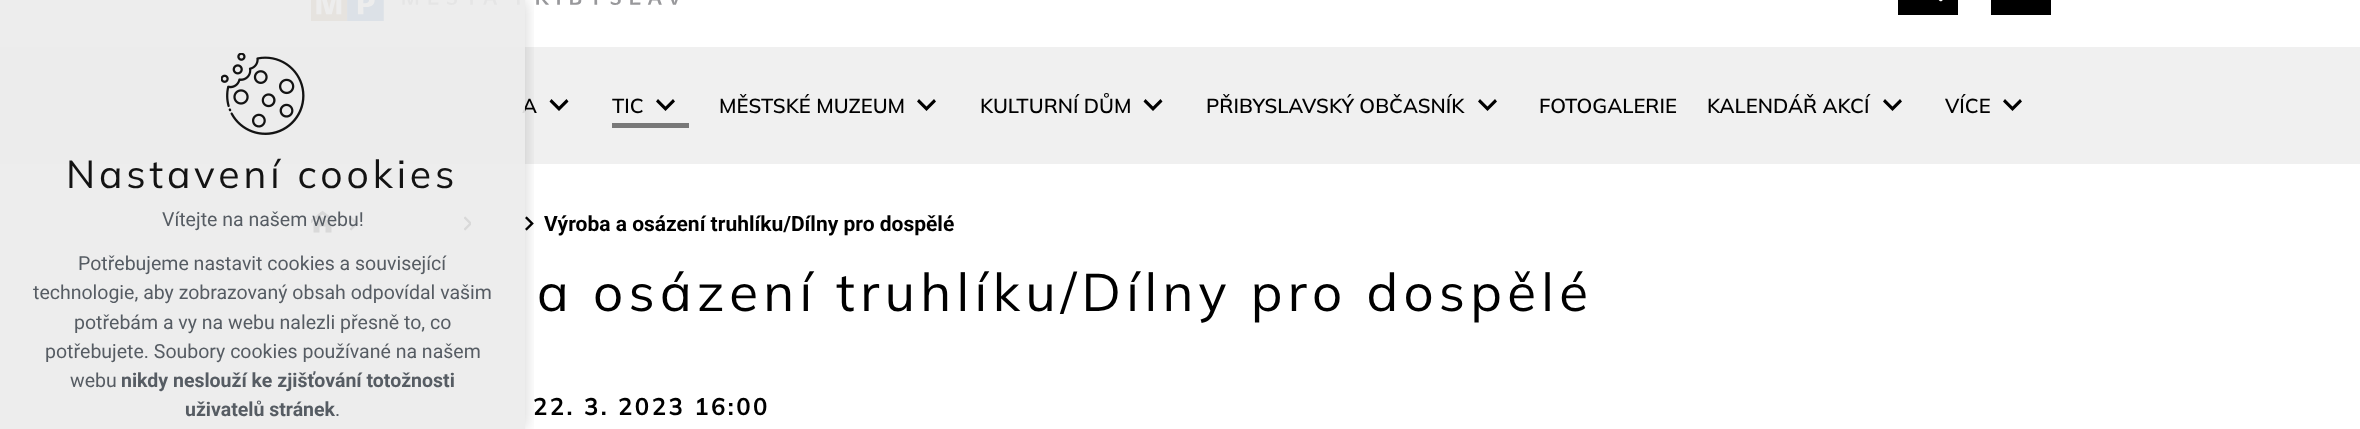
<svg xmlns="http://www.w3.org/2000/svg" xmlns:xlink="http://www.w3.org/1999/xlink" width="2360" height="429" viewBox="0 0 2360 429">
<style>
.cls-1{font:600 20.25px Mulish;fill:#000000}
.cls-2{font:19.5px Roboto;fill:#565c63}
.cls-3{font:bold 19.5px Roboto;fill:#565c63}
.cls-4{font:39px Mulish;letter-spacing:3.9px;fill:#131313}
.cls-5{font:bold 21px Roboto;fill:#000000}
.cls-6{font:52.8px Mulish;letter-spacing:5.3px;fill:#000000}
.cls-7{font:bold 24px Mulish;letter-spacing:2.4px;fill:#000000}
</style>
<defs>
<clipPath id="clip1"><rect x="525" y="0" width="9" height="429"/></clipPath>
</defs>
<rect width="100%" height="100%" fill="#ffffff"/>
<image xlink:href="image1.png" x="311" y="0" width="367" height="21"/>
<rect fill="#f0f0f0" x="0" y="47" width="2360" height="117"/>
<image xlink:href="image3.png" x="311" y="210" width="24" height="23"/>
<image xlink:href="image4.png" x="350" y="216" width="9" height="15"/>
<image xlink:href="image5.png" x="464" y="216" width="7" height="15"/>
<image xlink:href="image6.png" x="525" y="216" width="9" height="15"/>
<g clip-path="url(#clip1)">
<rect fill="#010101" fill-opacity="0.18" filter="blur(7.5px)" x="0" y="0" width="525" height="429"/>
</g>
<rect fill="#000000" x="1898" y="0" width="60" height="15"/>
<image xlink:href="image2.png" x="1938" y="0" width="5" height="2"/>
<rect fill="#000000" x="1991" y="0" width="60" height="15"/>
<path fill="#000000" d="M551.5 99L559 106.5L566.5 99L568.5 101.5L559 111L549.5 101.5Z"/>
<rect fill="#787878" x="612" y="123" width="77" height="5"/>
<path fill="#000000" d="M658 99L665.5 106.5L673 99L675 101.5L665.5 111L656 101.5Z"/>
<path fill="#000000" d="M919 99L926.5 106.5L934 99L936 101.5L926.5 111L917 101.5Z"/>
<path fill="#000000" d="M1145.5 99L1153 106.5L1160.5 99L1162.5 101.5L1153 111L1143.5 101.5Z"/>
<path fill="#000000" d="M1480 99L1487.5 106.5L1495 99L1497 101.5L1487.5 111L1478 101.5Z"/>
<path fill="#000000" d="M1885 99L1892.5 106.5L1900 99L1902 101.5L1892.5 111L1883 101.5Z"/>
<path fill="#000000" d="M2005 99L2012.5 106.5L2020 99L2022 101.5L2012.5 111L2003 101.5Z"/>
<text class="cls-1" x="522" y="113">A</text>
<rect fill="#ebebeb" fill-opacity="0.92" x="0" y="0" width="525" height="429"/>
<text class="cls-2" x="335" y="416">.</text>
<text class="cls-3" x="185" y="416">uživatelů stránek</text>
<text class="cls-3" x="121" y="387">nikdy neslouží ke zjišťování totožnosti</text>
<text class="cls-2" x="70" y="387">webu</text>
<text class="cls-2" x="45" y="358">potřebujete. Soubory cookies používané na našem</text>
<text class="cls-2" x="74" y="329">potřebám a vy na webu nalezli přesně to, co</text>
<text class="cls-2" x="33" y="299">technologie, aby zobrazovaný obsah odpovídal vašim</text>
<text class="cls-2" x="78" y="270">Potřebujeme nastavit cookies a související</text>
<text class="cls-2" x="162" y="226">Vítejte na našem webu!</text>
<text class="cls-4" x="66" y="188">Nastavení cookies</text>
<image xlink:href="image0.png" x="221" y="53" width="84" height="82"/>
<text class="cls-1" x="612" y="113">TIC</text>
<text class="cls-1" x="719" y="113">MĚSTSKÉ MUZEUM</text>
<text class="cls-1" x="980" y="113">KULTURNÍ DŮM</text>
<text class="cls-1" x="1206" y="113">PŘIBYSLAVSKÝ OBČASNÍK</text>
<text class="cls-1" x="1539" y="113">FOTOGALERIE</text>
<text class="cls-1" x="1707" y="113">KALENDÁŘ AKCÍ</text>
<text class="cls-1" x="1945" y="113">VÍCE</text>
<text class="cls-5" x="544" y="231">Výroba a osázení truhlíku/Dílny pro dospělé</text>
<text class="cls-6" x="537" y="311">a osázení truhlíku/Dílny pro dospělé</text>
<text class="cls-7" x="533" y="415">22. 3. 2023 16:00</text>
</svg>
